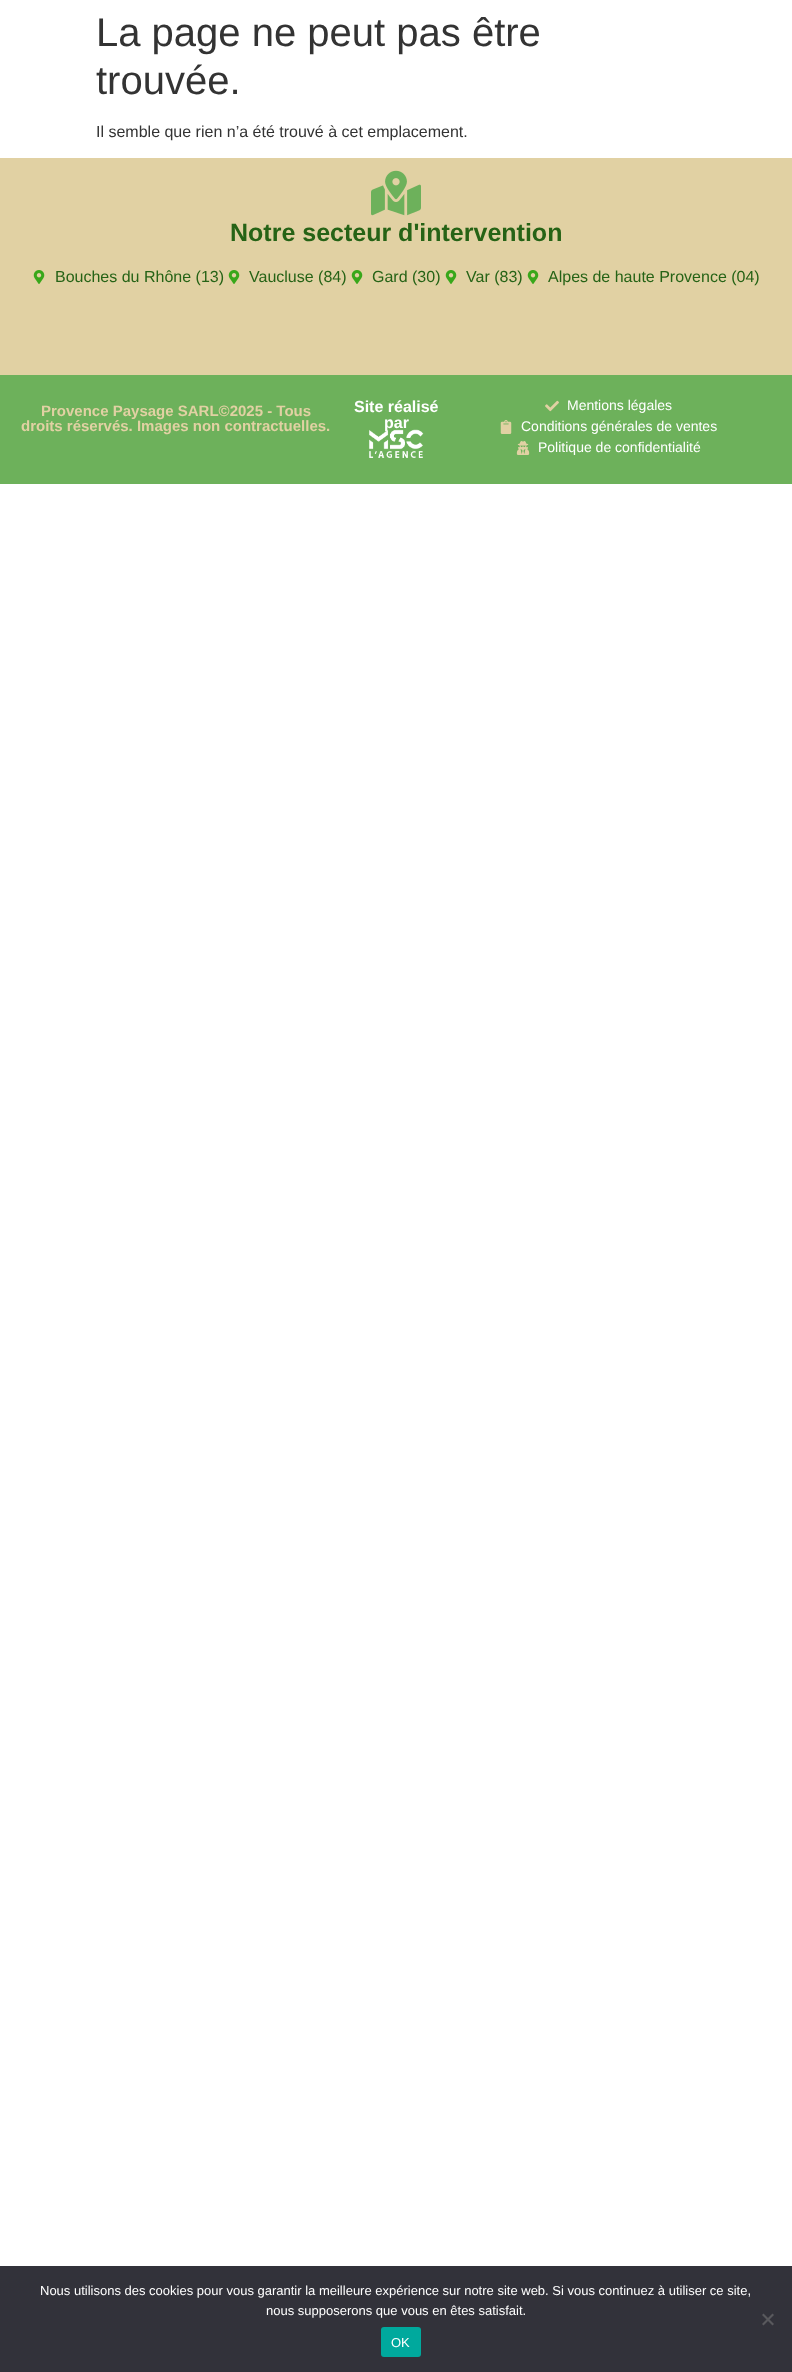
<svg xmlns="http://www.w3.org/2000/svg" xmlns:xlink="http://www.w3.org/1999/xlink" width="792" height="2372" viewBox="0 0 792 2372">
<style>
.cls-1{font:40px Liberation Sans;fill:#333333}
.cls-2{font:16px Liberation Sans;fill:#333333}
.cls-3{font:bold 25px Liberation Sans;fill:#266316}
.cls-4{font:16px Liberation Sans;fill:#266316}
.cls-5{font:bold 15px Liberation Sans;fill:#e1d1a3}
.cls-6{font:bold 16px Liberation Sans;fill:#ffffff}
.cls-7{font:14px Liberation Sans;fill:#ffffff}
.cls-8{font:13px Liberation Sans;fill:#ffffff}
</style>
<rect width="100%" height="100%" fill="#ffffff"/>
<rect fill="#e1d1a3" x="0" y="158" width="792" height="217"/>
<image xlink:href="image0.png" x="371" y="170" width="50" height="46"/>
<image xlink:href="image1.png" x="33" y="270" width="12" height="14"/>
<image xlink:href="image1.png" x="228" y="270" width="12" height="14"/>
<image xlink:href="image1.png" x="351" y="270" width="12" height="14"/>
<image xlink:href="image1.png" x="445" y="270" width="12" height="14"/>
<image xlink:href="image1.png" x="527" y="270" width="12" height="14"/>
<rect fill="#6db15b" x="0" y="375" width="792" height="109"/>
<image xlink:href="image3.png" x="545" y="400" width="14" height="12"/>
<image xlink:href="image4.png" x="500" y="420" width="12" height="14"/>
<image xlink:href="image5.png" x="516" y="441" width="14" height="14"/>
<rect fill="#32323a" x="0" y="2266" width="792" height="106"/>
<path fill="#59595d" d="M772.5 2313.5L774 2315L763.5 2325.5L762 2324Z"/>
<path fill="#59595d" d="M762 2315L763.5 2313.5L774 2324L772.5 2325.5Z"/>
<rect fill="#00a99d" x="381" y="2327" width="40" height="30" rx="3"/>
<text class="cls-1"><tspan x="96" y="46">La page ne peut pas être</tspan><tspan x="96" y="94">trouvée.</tspan></text>
<text class="cls-2" x="96" y="137">Il semble que rien n’a été trouvé à cet emplacement.</text>
<text class="cls-3" x="230" y="241">Notre secteur d'intervention</text>
<text class="cls-4" x="55" y="282">Bouches du Rhône (13)</text>
<text class="cls-4" x="249" y="282">Vaucluse (84)</text>
<text class="cls-4" x="372" y="282">Gard (30)</text>
<text class="cls-4" x="466" y="282">Var (83)</text>
<text class="cls-4" x="548" y="282">Alpes de haute Provence (04)</text>
<text class="cls-5" x="41" y="416">Provence Paysage SARL©2025 - Tous</text>
<text class="cls-5" x="21" y="431">droits réservés. Images non contractuelles.</text>
<text class="cls-6" x="354" y="412">Site réalisé</text>
<text class="cls-6" x="384" y="428">par</text>
<image xlink:href="image2.png" x="369" y="429" width="55" height="29"/>
<text class="cls-7" x="567" y="410">Mentions légales</text>
<text class="cls-7" x="521" y="431">Conditions générales de ventes</text>
<text class="cls-7" x="538" y="452">Politique de confidentialité</text>
<text class="cls-8" x="40" y="2295">Nous utilisons des cookies pour vous garantir la meilleure expérience sur notre site web. Si vous continuez à utiliser ce site,</text>
<text class="cls-8" x="266" y="2315">nous supposerons que vous en êtes satisfait.</text>
<text class="cls-8" x="391" y="2347">OK</text>
</svg>
